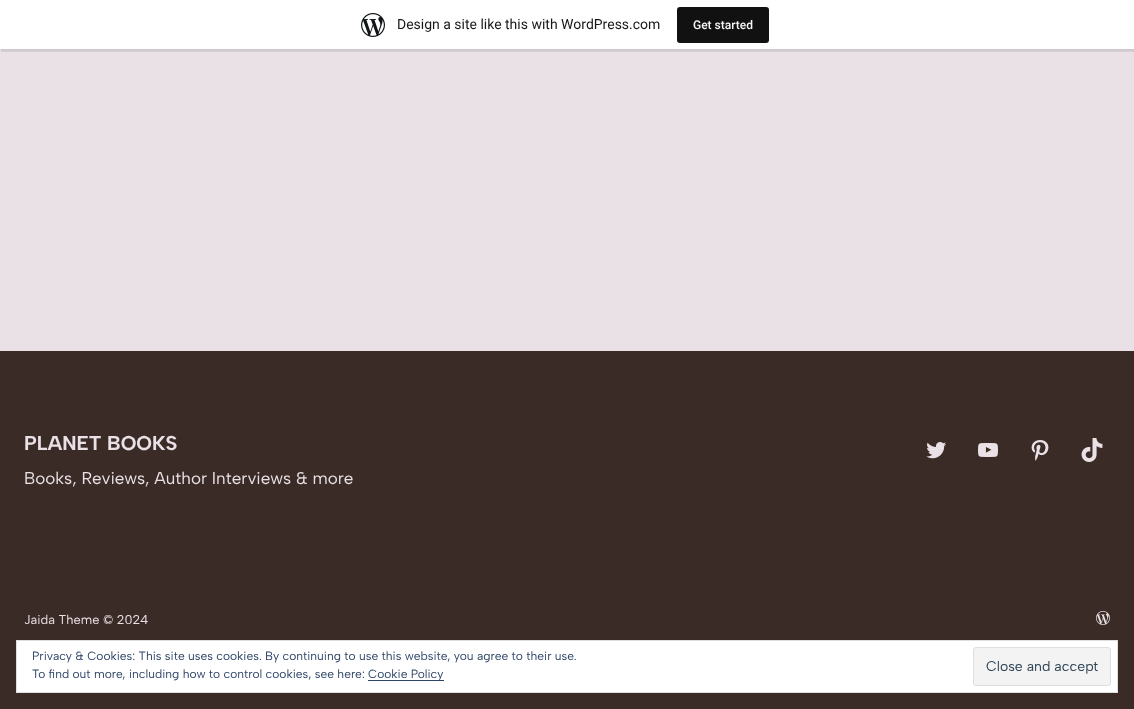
<svg xmlns="http://www.w3.org/2000/svg" xmlns:xlink="http://www.w3.org/1999/xlink" width="1134" height="709" viewBox="0 0 1134 709">
<style>
.cls-1{font:14px Roboto;fill:#171717}
.cls-2{font:500 12px Roboto;fill:#f6f7f7}
.cls-3{font:bold 20px Albert Sans;fill:#e9e1e5}
.cls-4{font:17px Albert Sans;fill:#e9e1e5}
.cls-5{font:12.75px Albert Sans;fill:#e9e1e5}
.cls-6{font:12px Albert Sans;fill:#2e4467}
.cls-7{font:14px Albert Sans;fill:#2e4453}
</style>
<rect width="100%" height="100%" fill="#e9e1e5"/>
<rect fill="#000000" fill-opacity="0.05" filter="blur(1px)" x="0" y="1" width="1134" height="49"/>
<path fill="#000000" fill-opacity="0.08" d="M1 49V52H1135V3H1134V49Z"/>
<rect fill="#ffffff" x="0" y="0" width="1134" height="49"/>
<image xlink:href="image0.png" x="361" y="13" width="24" height="24"/>
<rect fill="#111111" x="677" y="7" width="92" height="36" rx="3"/>
<rect fill="#3b2b27" x="0" y="351" width="1134" height="358"/>
<image xlink:href="image1.png" x="926" y="442" width="20" height="17"/>
<image xlink:href="image2.png" x="978" y="443" width="20" height="14"/>
<image xlink:href="image3.png" x="1031" y="440" width="18" height="21"/>
<image xlink:href="image4.png" x="1081" y="438" width="22" height="24"/>
<image xlink:href="image5.png" x="1096" y="611" width="14" height="14"/>
<rect fill="#ffffff" stroke="#dedede" x="16.5" y="640.5" width="1101" height="52"/>
<rect fill="#2e4467" x="368" y="680" width="76" height="1"/>
<rect fill="#f3f3f3" stroke="#dedede" x="973.5" y="647.5" width="137" height="38" rx="2.5"/>
<text class="cls-1" x="397" y="29">Design a site like this with WordPress.com</text>
<text class="cls-2" x="693" y="29">Get started</text>
<text class="cls-3" x="24" y="450">PLANET BOOKS</text>
<text class="cls-4" x="24" y="484">Books, Reviews, Author Interviews &amp; more</text>
<text class="cls-5" x="24" y="624">Jaida Theme © 2024</text>
<text class="cls-6"><tspan x="32" y="660">Privacy &amp; Cookies: This site uses cookies. By continuing to use this website, you agree to their use.</tspan><tspan x="32" y="678">To find out more, including how to control cookies, see here:</tspan></text>
<text class="cls-6" x="368" y="678">Cookie Policy</text>
<text class="cls-7" x="986" y="671">Close and accept</text>
</svg>
